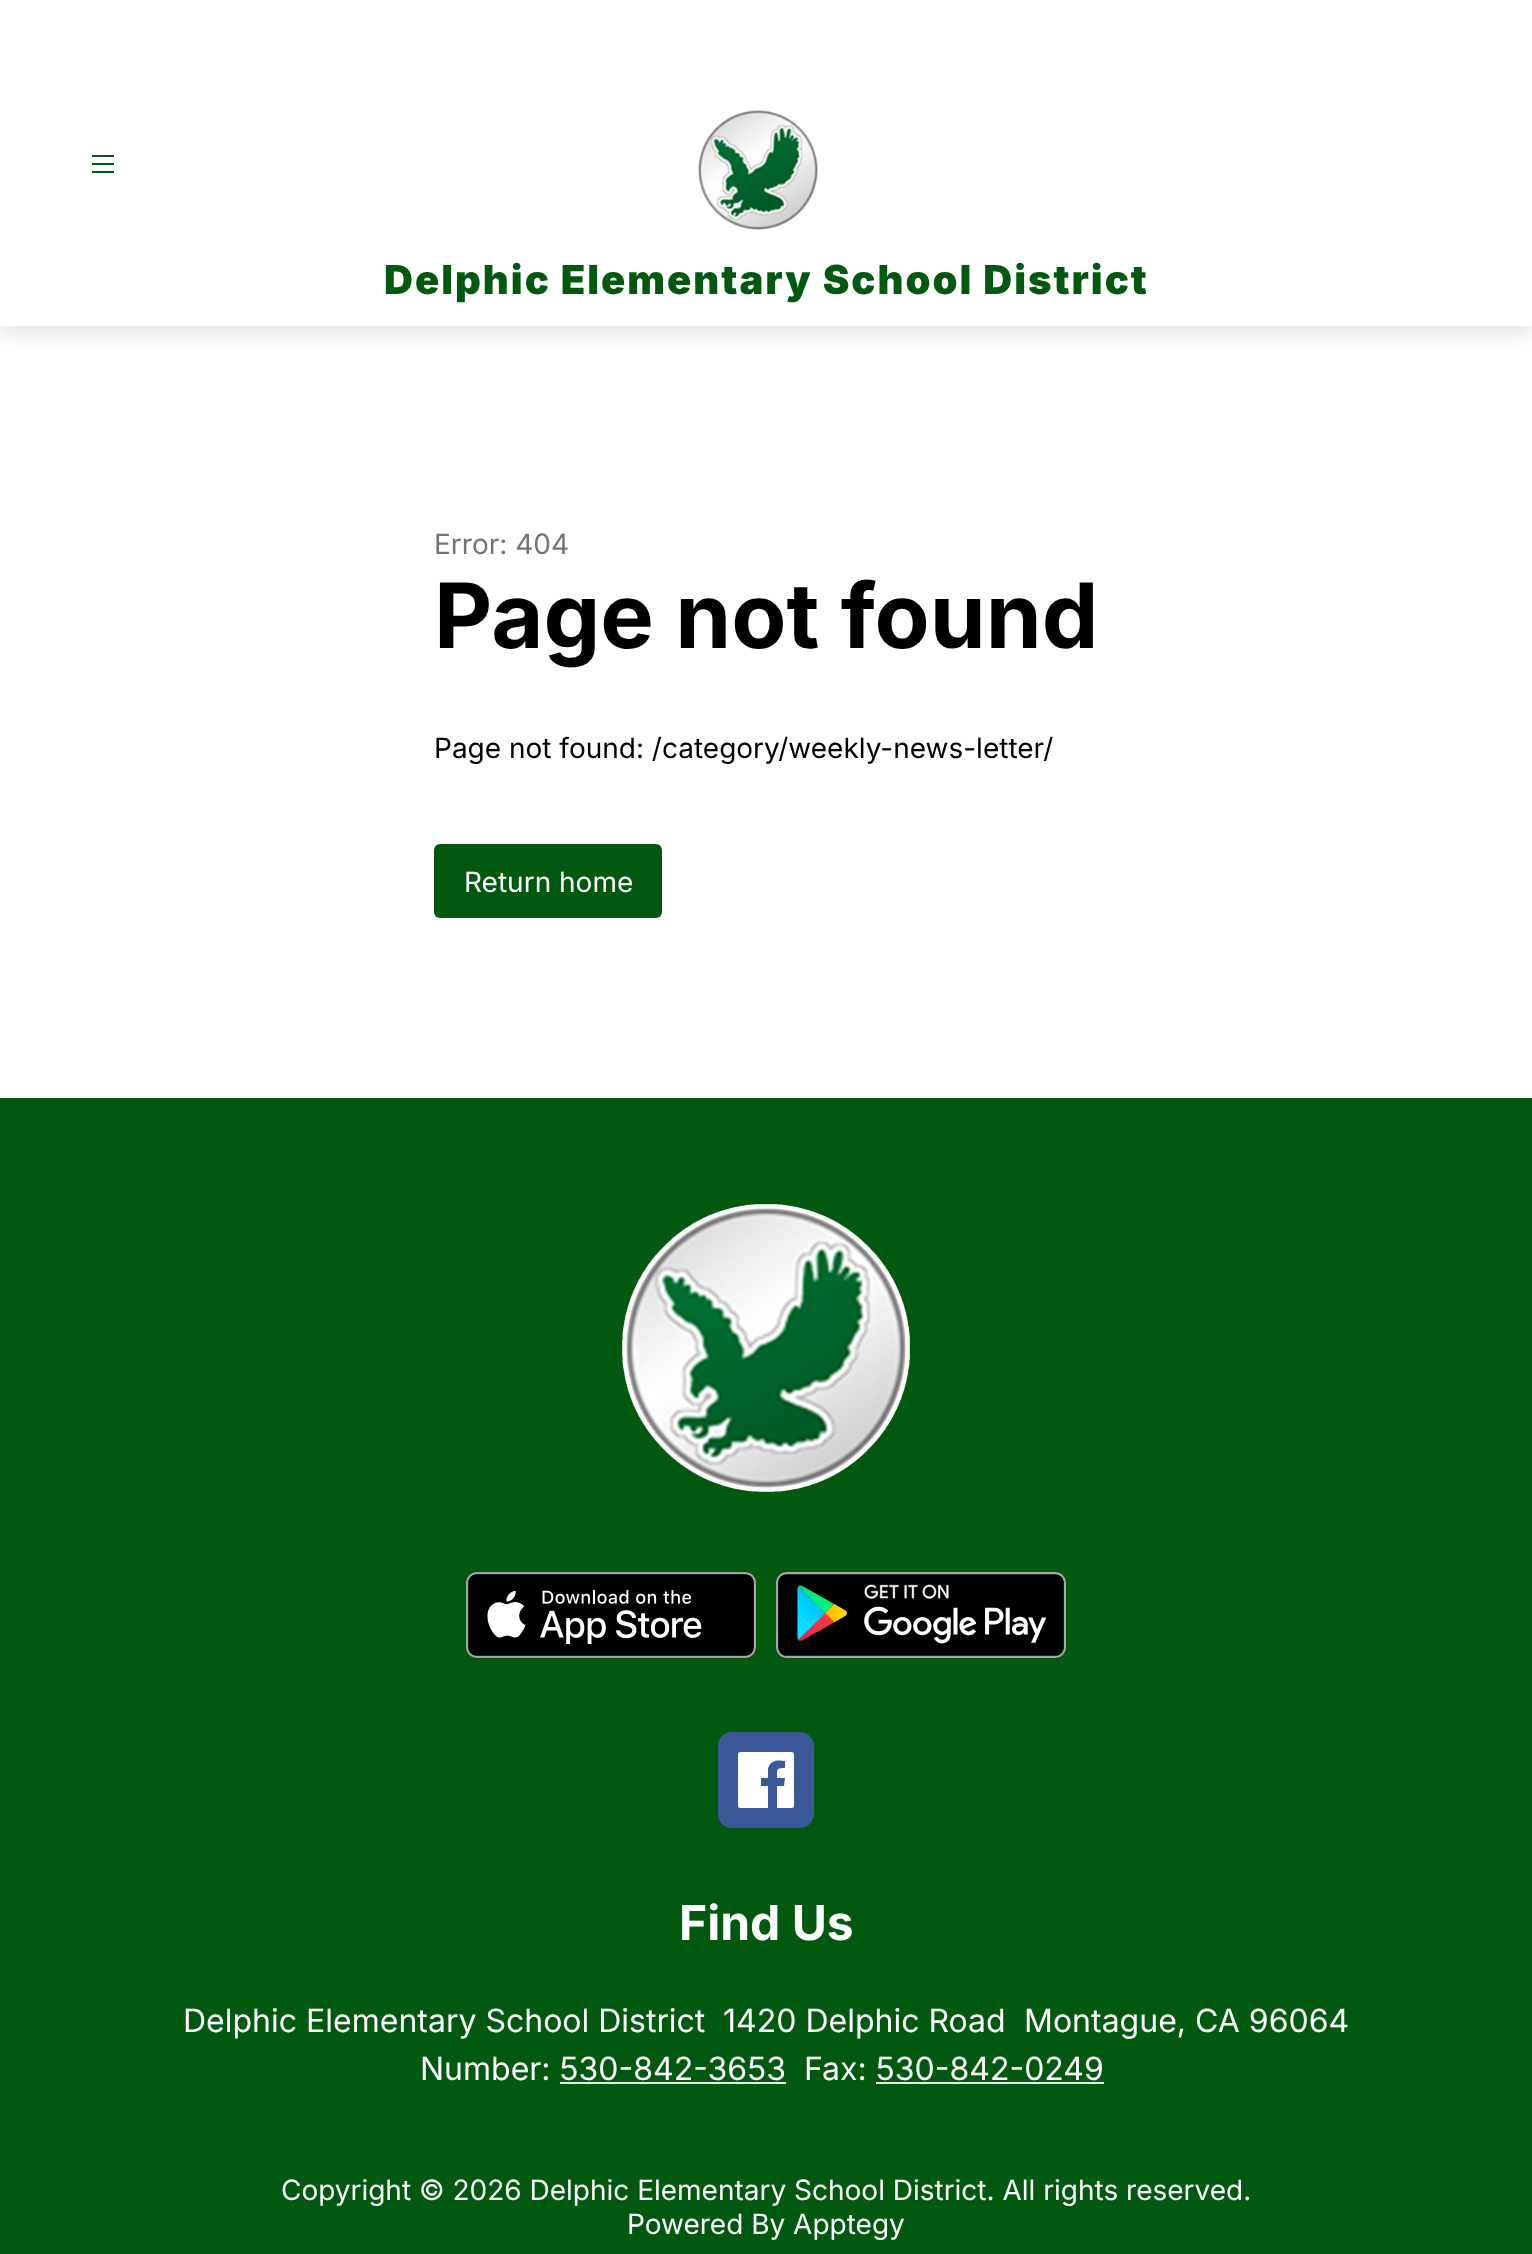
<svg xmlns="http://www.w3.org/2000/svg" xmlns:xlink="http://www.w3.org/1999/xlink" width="1532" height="2254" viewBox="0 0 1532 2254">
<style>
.cls-1{font:900 40px Inter;letter-spacing:2px;fill:#01590f}
.cls-2{font:28px Inter;fill:#747474}
.cls-3{font:bold 90px Inter;fill:#000000}
.cls-4{font:28px Inter;fill:#000000}
.cls-5{font:28px Inter;fill:#ffffff}
.cls-6{font:bold 48px Inter;fill:#ffffff}
.cls-7{font:32px Inter;fill:#ffffff}
</style>
<rect width="100%" height="100%" fill="#ffffff"/>
<rect fill="#000000" fill-opacity="0.1" filter="blur(10px)" x="0" y="8" width="1532" height="326"/>
<rect fill="#ffffff" x="0" y="0" width="1532" height="326"/>
<image xlink:href="image0.png" x="92" y="155" width="22" height="18"/>
<image xlink:href="image1.png" x="698" y="110" width="120" height="120"/>
<rect fill="#01590f" x="434" y="844" width="228" height="74" rx="6"/>
<rect fill="#01590f" x="0" y="1098" width="1532" height="1156"/>
<image xlink:href="image2.png" x="622" y="1204" width="288" height="288"/>
<image xlink:href="image3.png" x="466" y="1572" width="290" height="86"/>
<image xlink:href="image4.png" x="776" y="1572" width="290" height="86"/>
<rect fill="#3b5998" x="718" y="1732" width="96" height="96" rx="14"/>
<path fill="#ffffff" d="M792 1752H740C739 1752 738 1753 738 1754V1806C738 1807 739 1808 740 1808H792C793 1808 794 1807 794 1806V1754C794 1753 793 1752 792 1752ZM785 1768C776 1768 777 1769 777 1778H785L784 1786H777V1808H768V1786H761V1778H768V1769C770 1760 778 1760 785 1761Z"/>
<rect fill="#ffffff" x="560" y="2082" width="226" height="2"/>
<rect fill="#ffffff" x="876" y="2082" width="228" height="2"/>
<text class="cls-1" x="384" y="294">Delphic Elementary School District</text>
<text class="cls-2" x="434" y="554">Error: 404</text>
<text class="cls-3" x="434" y="648">Page not found</text>
<text class="cls-4" x="434" y="758">Page not found: /category/weekly-news-letter/</text>
<text class="cls-5" x="464" y="892">Return home</text>
<text class="cls-6" x="679" y="1940">Find Us</text>
<text class="cls-7" x="183" y="2032">Delphic Elementary School District</text>
<text class="cls-7" x="723" y="2032">1420 Delphic Road</text>
<text class="cls-7" x="1024" y="2032">Montague, CA 96064</text>
<text class="cls-7" x="420" y="2080">Number: 530-842-3653</text>
<text class="cls-7" x="804" y="2080">Fax: 530-842-0249</text>
<text class="cls-5" x="281" y="2200">Copyright © 2026 Delphic Elementary School District. All rights reserved.</text>
<text class="cls-5" x="627" y="2234">Powered By Apptegy</text>
</svg>
